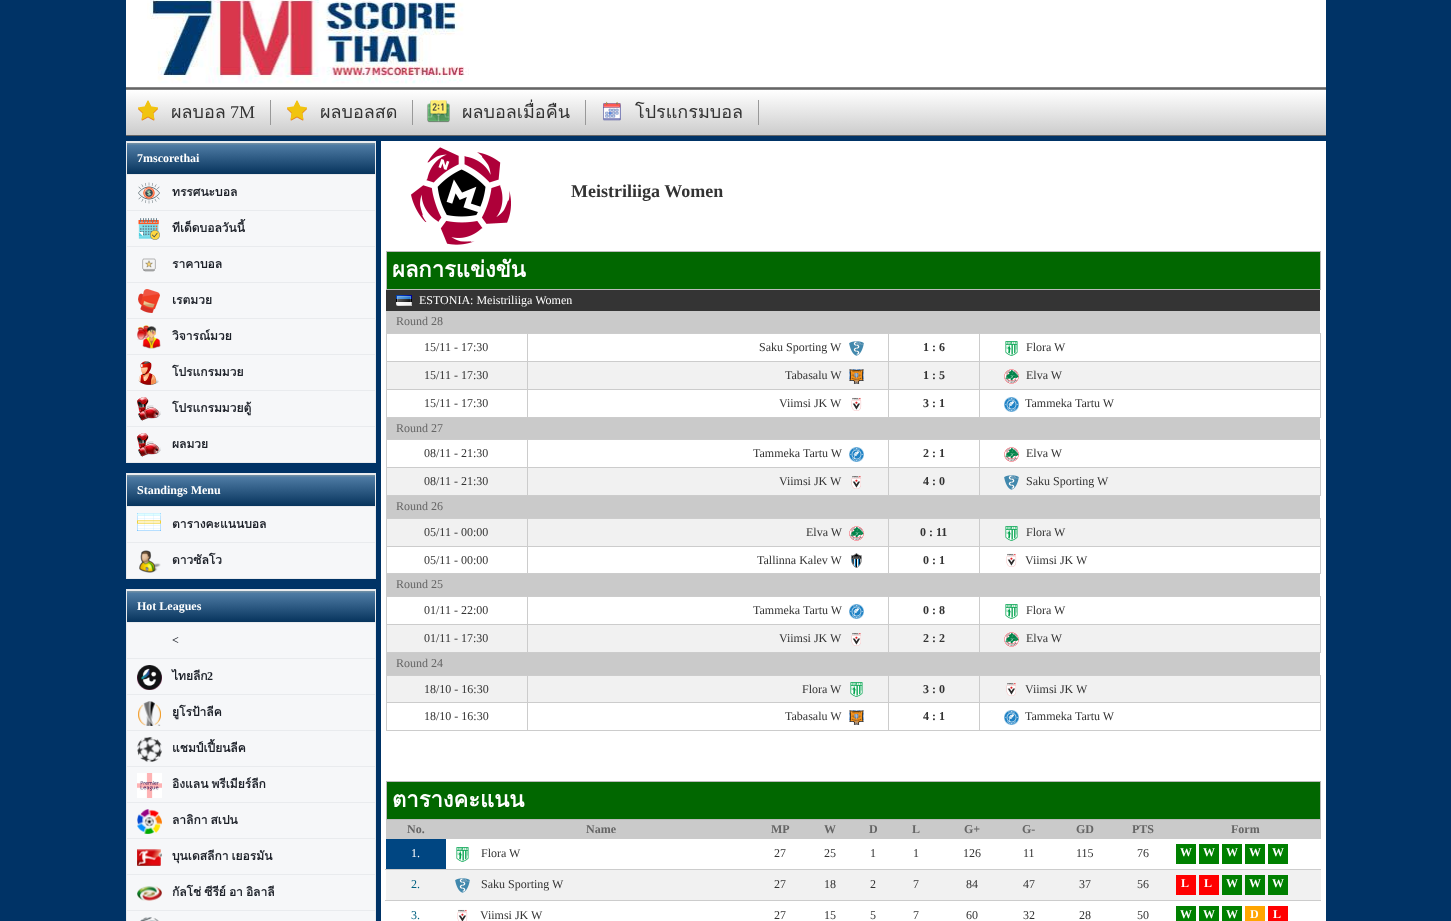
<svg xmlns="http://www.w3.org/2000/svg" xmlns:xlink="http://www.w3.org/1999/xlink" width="1451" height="921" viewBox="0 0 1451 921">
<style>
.cls-1{font:18px Loma;fill:#333333}
.cls-2{font:18px Liberation Serif;fill:#333333}
.cls-3{font:bold 12px Liberation Serif;fill:#ffffff}
.cls-4{font:bold 12px Loma;fill:#1d2129}
.cls-5{font:bold 12px Liberation Serif;fill:#1d2129}
.cls-6{font:bold 18px Liberation Serif;fill:#333333}
.cls-7{font:bold 22px Loma;fill:#ffffff}
.cls-8{font:12px Liberation Serif;fill:#ffffff}
.cls-9{font:12px Liberation Serif;fill:#656565}
.cls-10{font:12px Liberation Serif;fill:#333333}
.cls-11{font:bold 12px Liberation Serif;fill:#333333}
.cls-12{font:bold 12px Liberation Serif;fill:#656565}
.cls-13{font:12px Liberation Serif;fill:#006080}
</style>
<defs>
<linearGradient id="g1" gradientUnits="userSpaceOnUse" x1="726" y1="90" x2="726" y2="135"><stop offset="0" stop-color="#ffffff"/><stop offset="1" stop-color="#cccccc"/></linearGradient>
<linearGradient id="g2" gradientUnits="userSpaceOnUse" x1="251" y1="143" x2="251" y2="174"><stop offset="0" stop-color="#7592a5"/><stop offset="0.08" stop-color="#4d7aa3"/><stop offset="1" stop-color="#07345d"/></linearGradient>
<linearGradient id="g3" gradientUnits="userSpaceOnUse" x1="251" y1="475" x2="251" y2="506"><stop offset="0" stop-color="#7592a5"/><stop offset="0.08" stop-color="#4d7aa3"/><stop offset="1" stop-color="#07345d"/></linearGradient>
<linearGradient id="g4" gradientUnits="userSpaceOnUse" x1="251" y1="591" x2="251" y2="622"><stop offset="0" stop-color="#7592a5"/><stop offset="0.08" stop-color="#4d7aa3"/><stop offset="1" stop-color="#07345d"/></linearGradient>
</defs>
<rect width="100%" height="100%" fill="#003366"/>
<rect fill="#ffffff" x="126" y="0" width="1200" height="87"/>
<image xlink:href="image0.png" x="147" y="0" width="322" height="84"/>
<rect fill="#858585" x="126" y="87" width="1200" height="1"/>
<rect fill="#656565" x="126" y="88" width="1200" height="1"/>
<rect fill="url(#g1)" x="126" y="90" width="1200" height="45"/>
<rect fill="#858585" x="126" y="89" width="1200" height="1"/>
<rect fill="#656565" x="126" y="135" width="1200" height="1"/>
<image xlink:href="image1.png" x="138" y="100" width="20" height="21"/>
<rect fill="#999999" x="270" y="100" width="1" height="25"/>
<image xlink:href="image1.png" x="287" y="100" width="20" height="21"/>
<rect fill="#999999" x="412" y="100" width="1" height="25"/>
<image xlink:href="image2.png" x="427" y="100" width="23" height="23"/>
<rect fill="#999999" x="585" y="100" width="1" height="25"/>
<image xlink:href="image3.png" x="603" y="101" width="18" height="20"/>
<rect fill="#999999" x="758" y="100" width="1" height="25"/>
<rect fill="#f6f7f9" x="127" y="175" width="248" height="287"/>
<rect fill="none" stroke="#e9ebee" x="126.5" y="141.5" width="249" height="321"/>
<rect fill="url(#g2)" x="127" y="143" width="248" height="31"/>
<rect fill="#e9ebee" x="127" y="142" width="248" height="1"/>
<image xlink:href="image4.png" x="138" y="182" width="22" height="22"/>
<rect fill="#e9ebee" x="127" y="174" width="248" height="1"/>
<image xlink:href="image5.png" x="138" y="218" width="22" height="22"/>
<rect fill="#e9ebee" x="127" y="210" width="248" height="1"/>
<image xlink:href="image6.png" x="142" y="258" width="14" height="14"/>
<rect fill="#e9ebee" x="127" y="246" width="248" height="1"/>
<image xlink:href="image7.png" x="138" y="289" width="22" height="24"/>
<rect fill="#e9ebee" x="127" y="282" width="248" height="1"/>
<image xlink:href="image8.png" x="137" y="325" width="24" height="24"/>
<rect fill="#e9ebee" x="127" y="318" width="248" height="1"/>
<image xlink:href="image9.png" x="138" y="361" width="21" height="24"/>
<rect fill="#e9ebee" x="127" y="354" width="248" height="1"/>
<image xlink:href="image10.png" x="137" y="397" width="24" height="24"/>
<rect fill="#e9ebee" x="127" y="390" width="248" height="1"/>
<image xlink:href="image10.png" x="137" y="433" width="24" height="24"/>
<rect fill="#e9ebee" x="127" y="426" width="248" height="1"/>
<rect fill="#f6f7f9" x="127" y="507" width="248" height="71"/>
<rect fill="none" stroke="#e9ebee" x="126.5" y="473.5" width="249" height="105"/>
<rect fill="url(#g3)" x="127" y="475" width="248" height="31"/>
<rect fill="#e9ebee" x="127" y="474" width="248" height="1"/>
<image xlink:href="image11.png" x="137" y="513" width="24" height="18"/>
<rect fill="#e9ebee" x="127" y="506" width="248" height="1"/>
<image xlink:href="image12.png" x="139" y="550" width="22" height="23"/>
<rect fill="#e9ebee" x="127" y="542" width="248" height="1"/>
<rect fill="#f6f7f9" x="127" y="623" width="248" height="298"/>
<rect fill="none" stroke="#e9ebee" x="126.5" y="589.5" width="249" height="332"/>
<rect fill="url(#g4)" x="127" y="591" width="248" height="31"/>
<rect fill="#e9ebee" x="127" y="590" width="248" height="1"/>
<rect fill="#e9ebee" x="127" y="622" width="248" height="1"/>
<image xlink:href="image13.png" x="137" y="665" width="25" height="25"/>
<rect fill="#e9ebee" x="127" y="658" width="248" height="1"/>
<image xlink:href="image14.png" x="138" y="701" width="23" height="25"/>
<rect fill="#e9ebee" x="127" y="694" width="248" height="1"/>
<image xlink:href="image15.png" x="137" y="737" width="25" height="25"/>
<rect fill="#e9ebee" x="127" y="730" width="248" height="1"/>
<image xlink:href="image16.png" x="137" y="773" width="25" height="25"/>
<rect fill="#e9ebee" x="127" y="766" width="248" height="1"/>
<image xlink:href="image17.png" x="137" y="809" width="25" height="25"/>
<rect fill="#e9ebee" x="127" y="802" width="248" height="1"/>
<image xlink:href="image18.png" x="137" y="849" width="25" height="17"/>
<rect fill="#e9ebee" x="127" y="838" width="248" height="1"/>
<image xlink:href="image19.png" x="137" y="886" width="25" height="15"/>
<rect fill="#e9ebee" x="127" y="874" width="248" height="1"/>
<image xlink:href="image20.png" x="140" y="917" width="19" height="4"/>
<rect fill="#e9ebee" x="127" y="910" width="248" height="1"/>
<rect fill="#ffffff" x="381" y="141" width="945" height="780"/>
<image xlink:href="image21.png" x="411" y="147" width="100" height="98"/>
<rect fill="#016700" stroke="#bbbbbb" x="386.5" y="251.5" width="934" height="38"/>
<rect fill="#343434" x="386" y="290" width="934" height="21"/>
<image xlink:href="image22.png" x="396" y="295" width="16" height="11"/>
<rect fill="#cacaca" x="386" y="311" width="934" height="22"/>
<rect fill="#cccccc" x="979" y="333" width="342" height="1"/>
<rect fill="#cccccc" x="979" y="361" width="342" height="1"/>
<rect fill="#f1f1f1" x="387" y="362" width="933" height="27"/>
<rect fill="#cccccc" x="979" y="389" width="342" height="1"/>
<rect fill="#cccccc" x="1320" y="389" width="1" height="29"/>
<rect fill="#cccccc" x="979" y="417" width="342" height="1"/>
<rect fill="#cccccc" x="979" y="389" width="1" height="29"/>
<rect fill="#cccccc" x="888" y="389" width="92" height="1"/>
<rect fill="#cccccc" x="979" y="361" width="1" height="29"/>
<rect fill="#cccccc" x="888" y="361" width="92" height="1"/>
<rect fill="#cccccc" x="979" y="333" width="1" height="29"/>
<rect fill="#cccccc" x="888" y="333" width="92" height="1"/>
<rect fill="#cccccc" x="888" y="417" width="92" height="1"/>
<rect fill="#cccccc" x="888" y="389" width="1" height="29"/>
<rect fill="#cccccc" x="527" y="389" width="362" height="1"/>
<rect fill="#cccccc" x="888" y="361" width="1" height="29"/>
<rect fill="#cccccc" x="527" y="361" width="362" height="1"/>
<rect fill="#cccccc" x="888" y="333" width="1" height="29"/>
<rect fill="#cccccc" x="527" y="333" width="362" height="1"/>
<rect fill="#cccccc" x="527" y="417" width="362" height="1"/>
<rect fill="#cccccc" x="527" y="389" width="1" height="29"/>
<rect fill="#cccccc" x="386" y="389" width="142" height="1"/>
<rect fill="#cccccc" x="527" y="361" width="1" height="29"/>
<rect fill="#cccccc" x="386" y="361" width="142" height="1"/>
<rect fill="#cccccc" x="527" y="333" width="1" height="29"/>
<rect fill="#cccccc" x="386" y="333" width="142" height="1"/>
<rect fill="#cccccc" x="386" y="417" width="142" height="1"/>
<rect fill="#cccccc" x="386" y="389" width="1" height="29"/>
<rect fill="#cccccc" x="386" y="361" width="1" height="29"/>
<rect fill="#cccccc" x="386" y="333" width="1" height="29"/>
<image xlink:href="image23.png" x="849" y="341" width="15" height="15"/>
<rect fill="#cccccc" x="1320" y="361" width="1" height="29"/>
<rect fill="#cccccc" x="1320" y="333" width="1" height="29"/>
<image xlink:href="image24.png" x="1005" y="341" width="13" height="15"/>
<image xlink:href="image25.png" x="849" y="369" width="15" height="15"/>
<image xlink:href="image26.png" x="1004" y="369" width="15" height="15"/>
<image xlink:href="image27.png" x="851" y="397" width="11" height="14"/>
<image xlink:href="image28.png" x="1004" y="397" width="15" height="15"/>
<rect fill="#cacaca" x="386" y="418" width="934" height="21"/>
<rect fill="#cccccc" x="979" y="439" width="342" height="1"/>
<rect fill="#cccccc" x="979" y="467" width="342" height="1"/>
<rect fill="#f1f1f1" x="387" y="468" width="933" height="27"/>
<rect fill="#cccccc" x="1320" y="467" width="1" height="29"/>
<rect fill="#cccccc" x="979" y="495" width="342" height="1"/>
<rect fill="#cccccc" x="979" y="467" width="1" height="29"/>
<rect fill="#cccccc" x="888" y="467" width="92" height="1"/>
<rect fill="#cccccc" x="979" y="439" width="1" height="29"/>
<rect fill="#cccccc" x="888" y="439" width="92" height="1"/>
<rect fill="#cccccc" x="888" y="495" width="92" height="1"/>
<rect fill="#cccccc" x="888" y="467" width="1" height="29"/>
<rect fill="#cccccc" x="527" y="467" width="362" height="1"/>
<rect fill="#cccccc" x="888" y="439" width="1" height="29"/>
<rect fill="#cccccc" x="527" y="439" width="362" height="1"/>
<rect fill="#cccccc" x="527" y="495" width="362" height="1"/>
<rect fill="#cccccc" x="527" y="467" width="1" height="29"/>
<rect fill="#cccccc" x="386" y="467" width="142" height="1"/>
<rect fill="#cccccc" x="527" y="439" width="1" height="29"/>
<rect fill="#cccccc" x="386" y="439" width="142" height="1"/>
<rect fill="#cccccc" x="386" y="495" width="142" height="1"/>
<rect fill="#cccccc" x="386" y="467" width="1" height="29"/>
<rect fill="#cccccc" x="386" y="439" width="1" height="29"/>
<image xlink:href="image28.png" x="849" y="447" width="15" height="15"/>
<rect fill="#cccccc" x="1320" y="439" width="1" height="29"/>
<image xlink:href="image29.png" x="1004" y="447" width="15" height="15"/>
<image xlink:href="image30.png" x="851" y="476" width="10" height="13"/>
<image xlink:href="image31.png" x="1004" y="475" width="15" height="15"/>
<rect fill="#cacaca" x="386" y="496" width="934" height="22"/>
<rect fill="#f1f1f1" x="387" y="519" width="933" height="27"/>
<rect fill="#cccccc" x="979" y="518" width="342" height="1"/>
<rect fill="#cccccc" x="979" y="546" width="342" height="1"/>
<rect fill="#cccccc" x="1320" y="546" width="1" height="28"/>
<rect fill="#cccccc" x="979" y="573" width="342" height="1"/>
<rect fill="#cccccc" x="979" y="546" width="1" height="28"/>
<rect fill="#cccccc" x="888" y="546" width="92" height="1"/>
<rect fill="#cccccc" x="979" y="518" width="1" height="29"/>
<rect fill="#cccccc" x="888" y="518" width="92" height="1"/>
<rect fill="#cccccc" x="888" y="573" width="92" height="1"/>
<rect fill="#cccccc" x="888" y="546" width="1" height="28"/>
<rect fill="#cccccc" x="527" y="546" width="362" height="1"/>
<rect fill="#cccccc" x="888" y="518" width="1" height="29"/>
<rect fill="#cccccc" x="527" y="518" width="362" height="1"/>
<rect fill="#cccccc" x="527" y="573" width="362" height="1"/>
<rect fill="#cccccc" x="527" y="546" width="1" height="28"/>
<rect fill="#cccccc" x="386" y="546" width="142" height="1"/>
<rect fill="#cccccc" x="527" y="518" width="1" height="29"/>
<rect fill="#cccccc" x="386" y="518" width="142" height="1"/>
<rect fill="#cccccc" x="386" y="573" width="142" height="1"/>
<rect fill="#cccccc" x="386" y="546" width="1" height="28"/>
<rect fill="#cccccc" x="386" y="518" width="1" height="29"/>
<image xlink:href="image26.png" x="849" y="526" width="15" height="15"/>
<rect fill="#cccccc" x="1320" y="518" width="1" height="29"/>
<image xlink:href="image32.png" x="1005" y="526" width="13" height="15"/>
<image xlink:href="image33.png" x="851" y="553" width="11" height="15"/>
<image xlink:href="image27.png" x="1006" y="553" width="11" height="14"/>
<rect fill="#cacaca" x="386" y="574" width="934" height="22"/>
<rect fill="#cccccc" x="979" y="596" width="342" height="1"/>
<rect fill="#cccccc" x="979" y="624" width="342" height="1"/>
<rect fill="#f1f1f1" x="387" y="625" width="933" height="27"/>
<rect fill="#cccccc" x="1320" y="624" width="1" height="29"/>
<rect fill="#cccccc" x="979" y="652" width="342" height="1"/>
<rect fill="#cccccc" x="979" y="624" width="1" height="29"/>
<rect fill="#cccccc" x="888" y="624" width="92" height="1"/>
<rect fill="#cccccc" x="979" y="596" width="1" height="29"/>
<rect fill="#cccccc" x="888" y="596" width="92" height="1"/>
<rect fill="#cccccc" x="888" y="652" width="92" height="1"/>
<rect fill="#cccccc" x="888" y="624" width="1" height="29"/>
<rect fill="#cccccc" x="527" y="624" width="362" height="1"/>
<rect fill="#cccccc" x="888" y="596" width="1" height="29"/>
<rect fill="#cccccc" x="527" y="596" width="362" height="1"/>
<rect fill="#cccccc" x="527" y="652" width="362" height="1"/>
<rect fill="#cccccc" x="527" y="624" width="1" height="29"/>
<rect fill="#cccccc" x="386" y="624" width="142" height="1"/>
<rect fill="#cccccc" x="527" y="596" width="1" height="29"/>
<rect fill="#cccccc" x="386" y="596" width="142" height="1"/>
<rect fill="#cccccc" x="386" y="652" width="142" height="1"/>
<rect fill="#cccccc" x="386" y="624" width="1" height="29"/>
<rect fill="#cccccc" x="386" y="596" width="1" height="29"/>
<image xlink:href="image28.png" x="849" y="604" width="15" height="15"/>
<rect fill="#cccccc" x="1320" y="596" width="1" height="29"/>
<image xlink:href="image24.png" x="1005" y="604" width="13" height="15"/>
<image xlink:href="image30.png" x="851" y="633" width="10" height="13"/>
<image xlink:href="image26.png" x="1004" y="632" width="15" height="15"/>
<rect fill="#cacaca" x="386" y="653" width="934" height="22"/>
<rect fill="#f1f1f1" x="387" y="676" width="933" height="26"/>
<rect fill="#cccccc" x="979" y="675" width="342" height="1"/>
<rect fill="#cccccc" x="979" y="702" width="342" height="1"/>
<rect fill="#cccccc" x="1320" y="702" width="1" height="29"/>
<rect fill="#cccccc" x="979" y="730" width="342" height="1"/>
<rect fill="#cccccc" x="979" y="702" width="1" height="29"/>
<rect fill="#cccccc" x="888" y="702" width="92" height="1"/>
<rect fill="#cccccc" x="979" y="675" width="1" height="28"/>
<rect fill="#cccccc" x="888" y="675" width="92" height="1"/>
<rect fill="#cccccc" x="888" y="730" width="92" height="1"/>
<rect fill="#cccccc" x="888" y="702" width="1" height="29"/>
<rect fill="#cccccc" x="527" y="702" width="362" height="1"/>
<rect fill="#cccccc" x="888" y="675" width="1" height="28"/>
<rect fill="#cccccc" x="527" y="675" width="362" height="1"/>
<rect fill="#cccccc" x="527" y="730" width="362" height="1"/>
<rect fill="#cccccc" x="527" y="702" width="1" height="29"/>
<rect fill="#cccccc" x="386" y="702" width="142" height="1"/>
<rect fill="#cccccc" x="527" y="675" width="1" height="28"/>
<rect fill="#cccccc" x="386" y="675" width="142" height="1"/>
<rect fill="#cccccc" x="386" y="730" width="142" height="1"/>
<rect fill="#cccccc" x="386" y="702" width="1" height="29"/>
<rect fill="#cccccc" x="386" y="675" width="1" height="28"/>
<image xlink:href="image32.png" x="850" y="682" width="13" height="15"/>
<rect fill="#cccccc" x="1320" y="675" width="1" height="28"/>
<image xlink:href="image30.png" x="1006" y="683" width="10" height="13"/>
<image xlink:href="image34.png" x="849" y="710" width="15" height="15"/>
<image xlink:href="image28.png" x="1004" y="710" width="15" height="15"/>
<rect fill="#016700" stroke="#bbbbbb" x="386.5" y="781.5" width="934" height="38"/>
<rect fill="#cacaca" x="386" y="820" width="935" height="19"/>
<rect fill="#004682" x="386" y="839" width="60" height="30"/>
<image xlink:href="image24.png" x="456" y="847" width="13" height="15"/>
<rect fill="#cccccc" x="385" y="869" width="936" height="1"/>
<rect fill="#008000" x="1176" y="844" width="20" height="20"/>
<rect fill="#008000" x="1199" y="844" width="20" height="20"/>
<rect fill="#008000" x="1222" y="844" width="20" height="20"/>
<rect fill="#008000" x="1245" y="844" width="20" height="20"/>
<rect fill="#008000" x="1268" y="844" width="20" height="20"/>
<rect fill="#f1f1f1" x="386" y="870" width="935" height="30"/>
<image xlink:href="image31.png" x="455" y="878" width="15" height="15"/>
<rect fill="#cccccc" x="385" y="900" width="936" height="1"/>
<rect fill="#ff0000" x="1176" y="875" width="20" height="20"/>
<rect fill="#ff0000" x="1199" y="875" width="20" height="20"/>
<rect fill="#008000" x="1222" y="875" width="20" height="20"/>
<rect fill="#008000" x="1245" y="875" width="20" height="20"/>
<rect fill="#008000" x="1268" y="875" width="20" height="20"/>
<image xlink:href="image35.png" x="457" y="909" width="11" height="12"/>
<rect fill="#008000" x="1176" y="906" width="20" height="15"/>
<rect fill="#008000" x="1199" y="906" width="20" height="15"/>
<rect fill="#008000" x="1222" y="906" width="20" height="15"/>
<rect fill="#ffa500" x="1245" y="906" width="20" height="15"/>
<rect fill="#ff0000" x="1268" y="906" width="20" height="15"/>
<text class="cls-1" x="171" y="118">ผลบอล</text>
<text class="cls-2" x="230" y="118">7M</text>
<text class="cls-1" x="320" y="118">ผลบอลสด</text>
<text class="cls-1" x="462" y="118">ผลบอลเมื่อคืน</text>
<text class="cls-1" x="635" y="118">โปรแกรมบอล</text>
<text class="cls-3" x="137" y="162">7mscorethai</text>
<text class="cls-4" x="172" y="196">ทรรศนะบอล</text>
<text class="cls-4" x="172" y="232">ทีเด็ดบอลวันนี้</text>
<text class="cls-4" x="172" y="268">ราคาบอล</text>
<text class="cls-4" x="172" y="304">เรตมวย</text>
<text class="cls-4" x="172" y="340">วิจารณ์มวย</text>
<text class="cls-4" x="172" y="376">โปรแกรมมวย</text>
<text class="cls-4" x="172" y="412">โปรแกรมมวยตู้</text>
<text class="cls-4" x="172" y="448">ผลมวย</text>
<text class="cls-3" x="137" y="494">Standings Menu</text>
<text class="cls-4" x="172" y="528">ตารางคะแนนบอล</text>
<text class="cls-4" x="172" y="564">ดาวซัลโว</text>
<text class="cls-3" x="137" y="610">Hot Leagues</text>
<text class="cls-5" x="172" y="644">&lt;</text>
<text class="cls-4" x="172" y="680">ไทยลีก</text>
<text class="cls-5" x="207" y="680">2</text>
<text class="cls-4" x="172" y="716">ยูโรป้าลีค</text>
<text class="cls-4" x="172" y="752">แชมป์เปี้ยนลีค</text>
<text class="cls-4" x="172" y="788" word-spacing="-1">อิงแลน พรีเมียร์ลีก</text>
<text class="cls-4" x="172" y="824" word-spacing="-1">ลาลิกา สเปน</text>
<text class="cls-4" x="172" y="860" word-spacing="-1">บุนเดสลีกา เยอรมัน</text>
<text class="cls-4" x="172" y="896" word-spacing="-1">กัลโช่ ซีรีย์ อา อิลาลี</text>
<text class="cls-6" x="571" y="197">Meistriliiga Women</text>
<text class="cls-7" x="392" y="277">ผลการแข่งขัน</text>
<text class="cls-8" x="419" y="304">ESTONIA: Meistriliiga Women</text>
<text class="cls-9" x="396" y="325">Round 28</text>
<text class="cls-10" x="424" y="351">15/11 - 17:30</text>
<text class="cls-10" x="759" y="351">Saku Sporting W</text>
<text class="cls-11" x="923" y="351">1 : 6</text>
<text class="cls-10" x="1026" y="351">Flora W</text>
<text class="cls-10" x="424" y="379">15/11 - 17:30</text>
<text class="cls-10" x="785" y="379">Tabasalu W</text>
<text class="cls-11" x="923" y="379">1 : 5</text>
<text class="cls-10" x="1026" y="379">Elva W</text>
<text class="cls-10" x="424" y="407">15/11 - 17:30</text>
<text class="cls-10" x="779" y="407">Viimsi JK W</text>
<text class="cls-11" x="923" y="407">3 : 1</text>
<text class="cls-10" x="1025" y="407">Tammeka Tartu W</text>
<text class="cls-9" x="396" y="432">Round 27</text>
<text class="cls-10" x="424" y="457">08/11 - 21:30</text>
<text class="cls-10" x="753" y="457">Tammeka Tartu W</text>
<text class="cls-11" x="923" y="457">2 : 1</text>
<text class="cls-10" x="1026" y="457">Elva W</text>
<text class="cls-10" x="424" y="485">08/11 - 21:30</text>
<text class="cls-10" x="779" y="485">Viimsi JK W</text>
<text class="cls-11" x="923" y="485">4 : 0</text>
<text class="cls-10" x="1026" y="485">Saku Sporting W</text>
<text class="cls-9" x="396" y="510">Round 26</text>
<text class="cls-10" x="424" y="536">05/11 - 00:00</text>
<text class="cls-10" x="806" y="536">Elva W</text>
<text class="cls-11" x="920" y="536">0 : 11</text>
<text class="cls-10" x="1026" y="536">Flora W</text>
<text class="cls-10" x="424" y="564">05/11 - 00:00</text>
<text class="cls-10" x="757" y="564">Tallinna Kalev W</text>
<text class="cls-11" x="923" y="564">0 : 1</text>
<text class="cls-10" x="1025" y="564">Viimsi JK W</text>
<text class="cls-9" x="396" y="588">Round 25</text>
<text class="cls-10" x="424" y="614">01/11 - 22:00</text>
<text class="cls-10" x="753" y="614">Tammeka Tartu W</text>
<text class="cls-11" x="923" y="614">0 : 8</text>
<text class="cls-10" x="1026" y="614">Flora W</text>
<text class="cls-10" x="424" y="642">01/11 - 17:30</text>
<text class="cls-10" x="779" y="642">Viimsi JK W</text>
<text class="cls-11" x="923" y="642">2 : 2</text>
<text class="cls-10" x="1026" y="642">Elva W</text>
<text class="cls-9" x="396" y="667">Round 24</text>
<text class="cls-10" x="424" y="693">18/10 - 16:30</text>
<text class="cls-10" x="802" y="693">Flora W</text>
<text class="cls-11" x="923" y="693">3 : 0</text>
<text class="cls-10" x="1025" y="693">Viimsi JK W</text>
<text class="cls-10" x="424" y="720">18/10 - 16:30</text>
<text class="cls-10" x="785" y="720">Tabasalu W</text>
<text class="cls-11" x="923" y="720">4 : 1</text>
<text class="cls-10" x="1025" y="720">Tammeka Tartu W</text>
<text class="cls-7" x="392" y="807">ตารางคะแนน</text>
<text class="cls-12" x="407" y="833">No.</text>
<text class="cls-12" x="586" y="833">Name</text>
<text class="cls-12" x="771" y="833">MP</text>
<text class="cls-12" x="824" y="833">W</text>
<text class="cls-12" x="869" y="833">D</text>
<text class="cls-12" x="912" y="833">L</text>
<text class="cls-12" x="964" y="833">G+</text>
<text class="cls-12" x="1022" y="833">G-</text>
<text class="cls-12" x="1076" y="833">GD</text>
<text class="cls-12" x="1132" y="833">PTS</text>
<text class="cls-12" x="1231" y="833">Form</text>
<text class="cls-8" x="411" y="857">1.</text>
<text class="cls-10" x="481" y="857">Flora W</text>
<text class="cls-10" x="774" y="857">27</text>
<text class="cls-10" x="824" y="857">25</text>
<text class="cls-10" x="870" y="857">1</text>
<text class="cls-10" x="913" y="857">1</text>
<text class="cls-10" x="963" y="857">126</text>
<text class="cls-10" x="1023" y="857">11</text>
<text class="cls-10" x="1076" y="857">115</text>
<text class="cls-10" x="1137" y="857">76</text>
<text class="cls-3" x="1180" y="856">W</text>
<text class="cls-3" x="1203" y="856">W</text>
<text class="cls-3" x="1226" y="856">W</text>
<text class="cls-3" x="1249" y="856">W</text>
<text class="cls-3" x="1272" y="856">W</text>
<text class="cls-13" x="411" y="888">2.</text>
<text class="cls-10" x="481" y="888">Saku Sporting W</text>
<text class="cls-10" x="774" y="888">27</text>
<text class="cls-10" x="824" y="888">18</text>
<text class="cls-10" x="870" y="888">2</text>
<text class="cls-10" x="913" y="888">7</text>
<text class="cls-10" x="966" y="888">84</text>
<text class="cls-10" x="1023" y="888">47</text>
<text class="cls-10" x="1079" y="888">37</text>
<text class="cls-10" x="1137" y="888">56</text>
<text class="cls-3" x="1181" y="887">L</text>
<text class="cls-3" x="1204" y="887">L</text>
<text class="cls-3" x="1226" y="887">W</text>
<text class="cls-3" x="1249" y="887">W</text>
<text class="cls-3" x="1272" y="887">W</text>
<text class="cls-13" x="411" y="919">3.</text>
<text class="cls-10" x="480" y="919">Viimsi JK W</text>
<text class="cls-10" x="774" y="919">27</text>
<text class="cls-10" x="824" y="919">15</text>
<text class="cls-10" x="870" y="919">5</text>
<text class="cls-10" x="913" y="919">7</text>
<text class="cls-10" x="966" y="919">60</text>
<text class="cls-10" x="1023" y="919">32</text>
<text class="cls-10" x="1079" y="919">28</text>
<text class="cls-10" x="1137" y="919">50</text>
<text class="cls-3" x="1180" y="918">W</text>
<text class="cls-3" x="1203" y="918">W</text>
<text class="cls-3" x="1226" y="918">W</text>
<text class="cls-3" x="1250" y="918">D</text>
<text class="cls-3" x="1273" y="918">L</text>
</svg>
